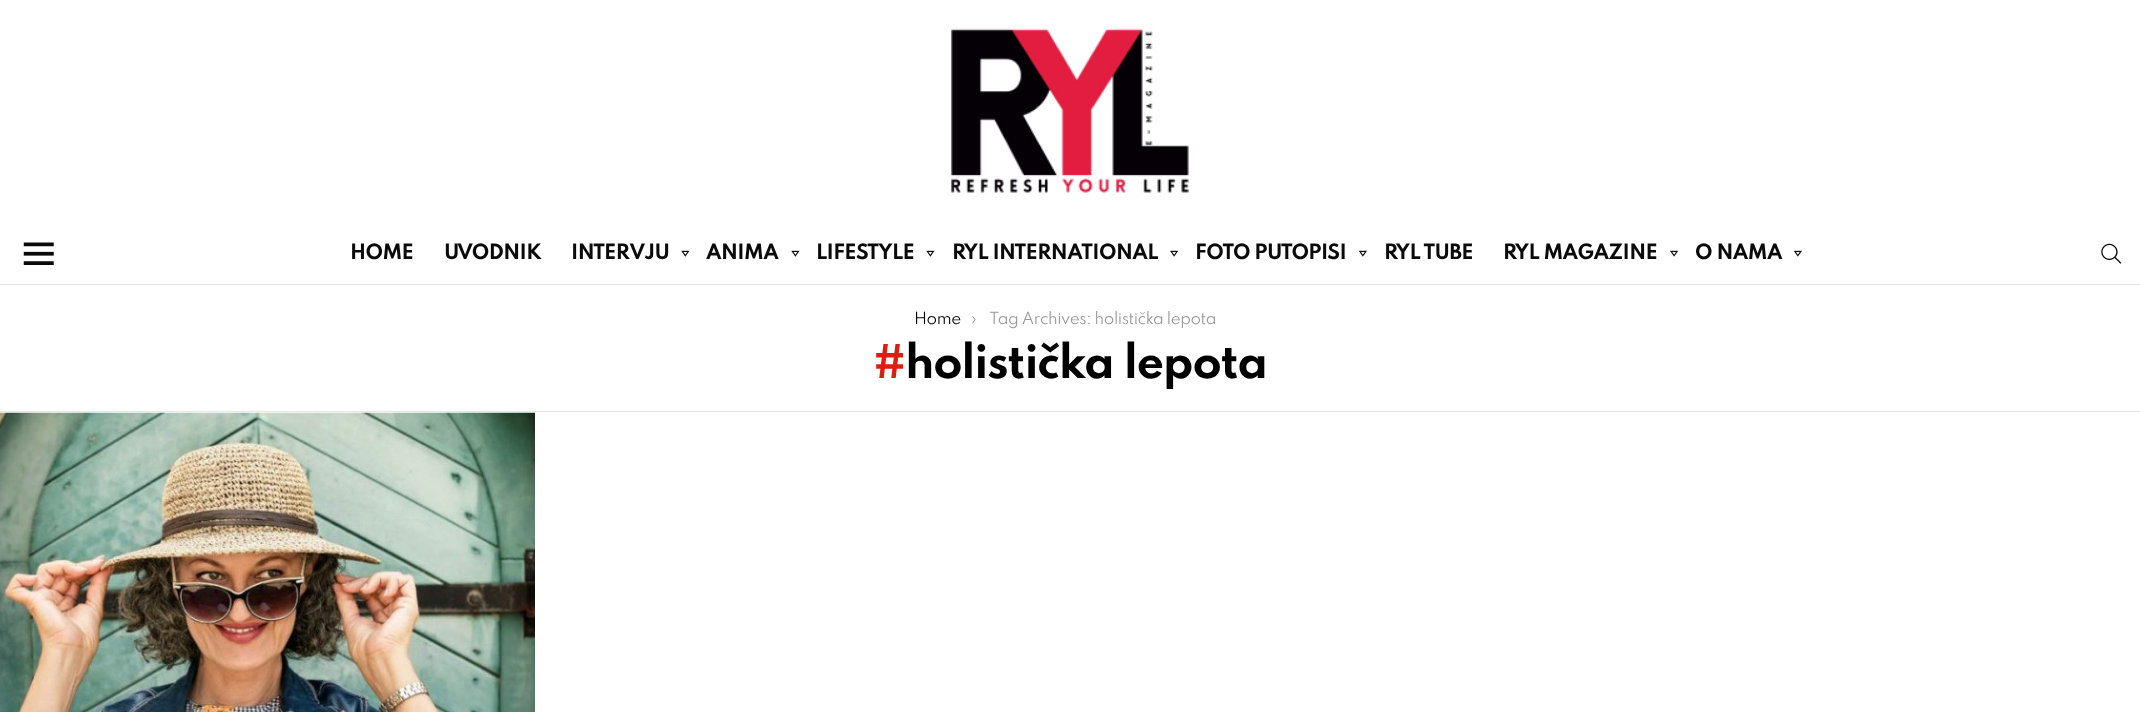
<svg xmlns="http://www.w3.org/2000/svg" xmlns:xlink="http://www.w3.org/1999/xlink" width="2140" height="712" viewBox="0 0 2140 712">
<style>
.cls-1{font:bold 18.75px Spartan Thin;letter-spacing:-0.6px;fill:#0a0a0a}
.cls-2{font:15px Spartan Thin;letter-spacing:-0.45px;fill:#000000}
.cls-3{font:15px Spartan Thin;letter-spacing:-0.45px;fill:#999999}
.cls-4{font:bold 42.5px Spartan Thin;letter-spacing:-1.25px;fill:#dd1d0f}
.cls-5{font:bold 42.5px Spartan Thin;letter-spacing:-1.25px;fill:#000000}
</style>
<rect width="100%" height="100%" fill="#ffffff"/>
<image xlink:href="image0.png" x="951" y="28" width="238" height="165"/>
<image xlink:href="image1.png" x="23" y="242" width="31" height="23"/>
<image xlink:href="image2.png" x="681" y="250" width="9" height="7"/>
<image xlink:href="image2.png" x="791" y="250" width="9" height="7"/>
<image xlink:href="image2.png" x="926" y="250" width="9" height="7"/>
<image xlink:href="image3.png" x="1170" y="250" width="9" height="7"/>
<image xlink:href="image4.png" x="1358" y="250" width="9" height="7"/>
<image xlink:href="image3.png" x="1670" y="250" width="9" height="7"/>
<image xlink:href="image4.png" x="1793" y="250" width="9" height="7"/>
<image xlink:href="image5.png" x="2101" y="243" width="21" height="21"/>
<rect fill="#e6e6e6" x="0" y="284" width="2140" height="1"/>
<rect fill="#e6e6e6" x="0" y="411" width="2140" height="1"/>
<image xlink:href="image6.png" x="0" y="412" width="535" height="300"/>
<text class="cls-1" x="350" y="259">HOME</text>
<text class="cls-1" x="444" y="259">UVODNIK</text>
<text class="cls-1" x="571" y="259">INTERVJU</text>
<text class="cls-1" x="706" y="259">ANIMA</text>
<text class="cls-1" x="816" y="259">LIFESTYLE</text>
<text class="cls-1" x="952" y="259">RYL INTERNATIONAL</text>
<text class="cls-1" x="1195" y="259">FOTO PUTOPISI</text>
<text class="cls-1" x="1384" y="259">RYL TUBE</text>
<text class="cls-1" x="1503" y="259">RYL MAGAZINE</text>
<text class="cls-1" x="1695" y="259">O NAMA</text>
<text class="cls-2" x="914" y="324">Home</text>
<text class="cls-3" x="971" y="324">›</text>
<text class="cls-3" x="989" y="324">Tag Archives: holistička lepota</text>
<text class="cls-4" x="873" y="378">#</text>
<text class="cls-5" x="905" y="378">holistička lepota</text>
</svg>
